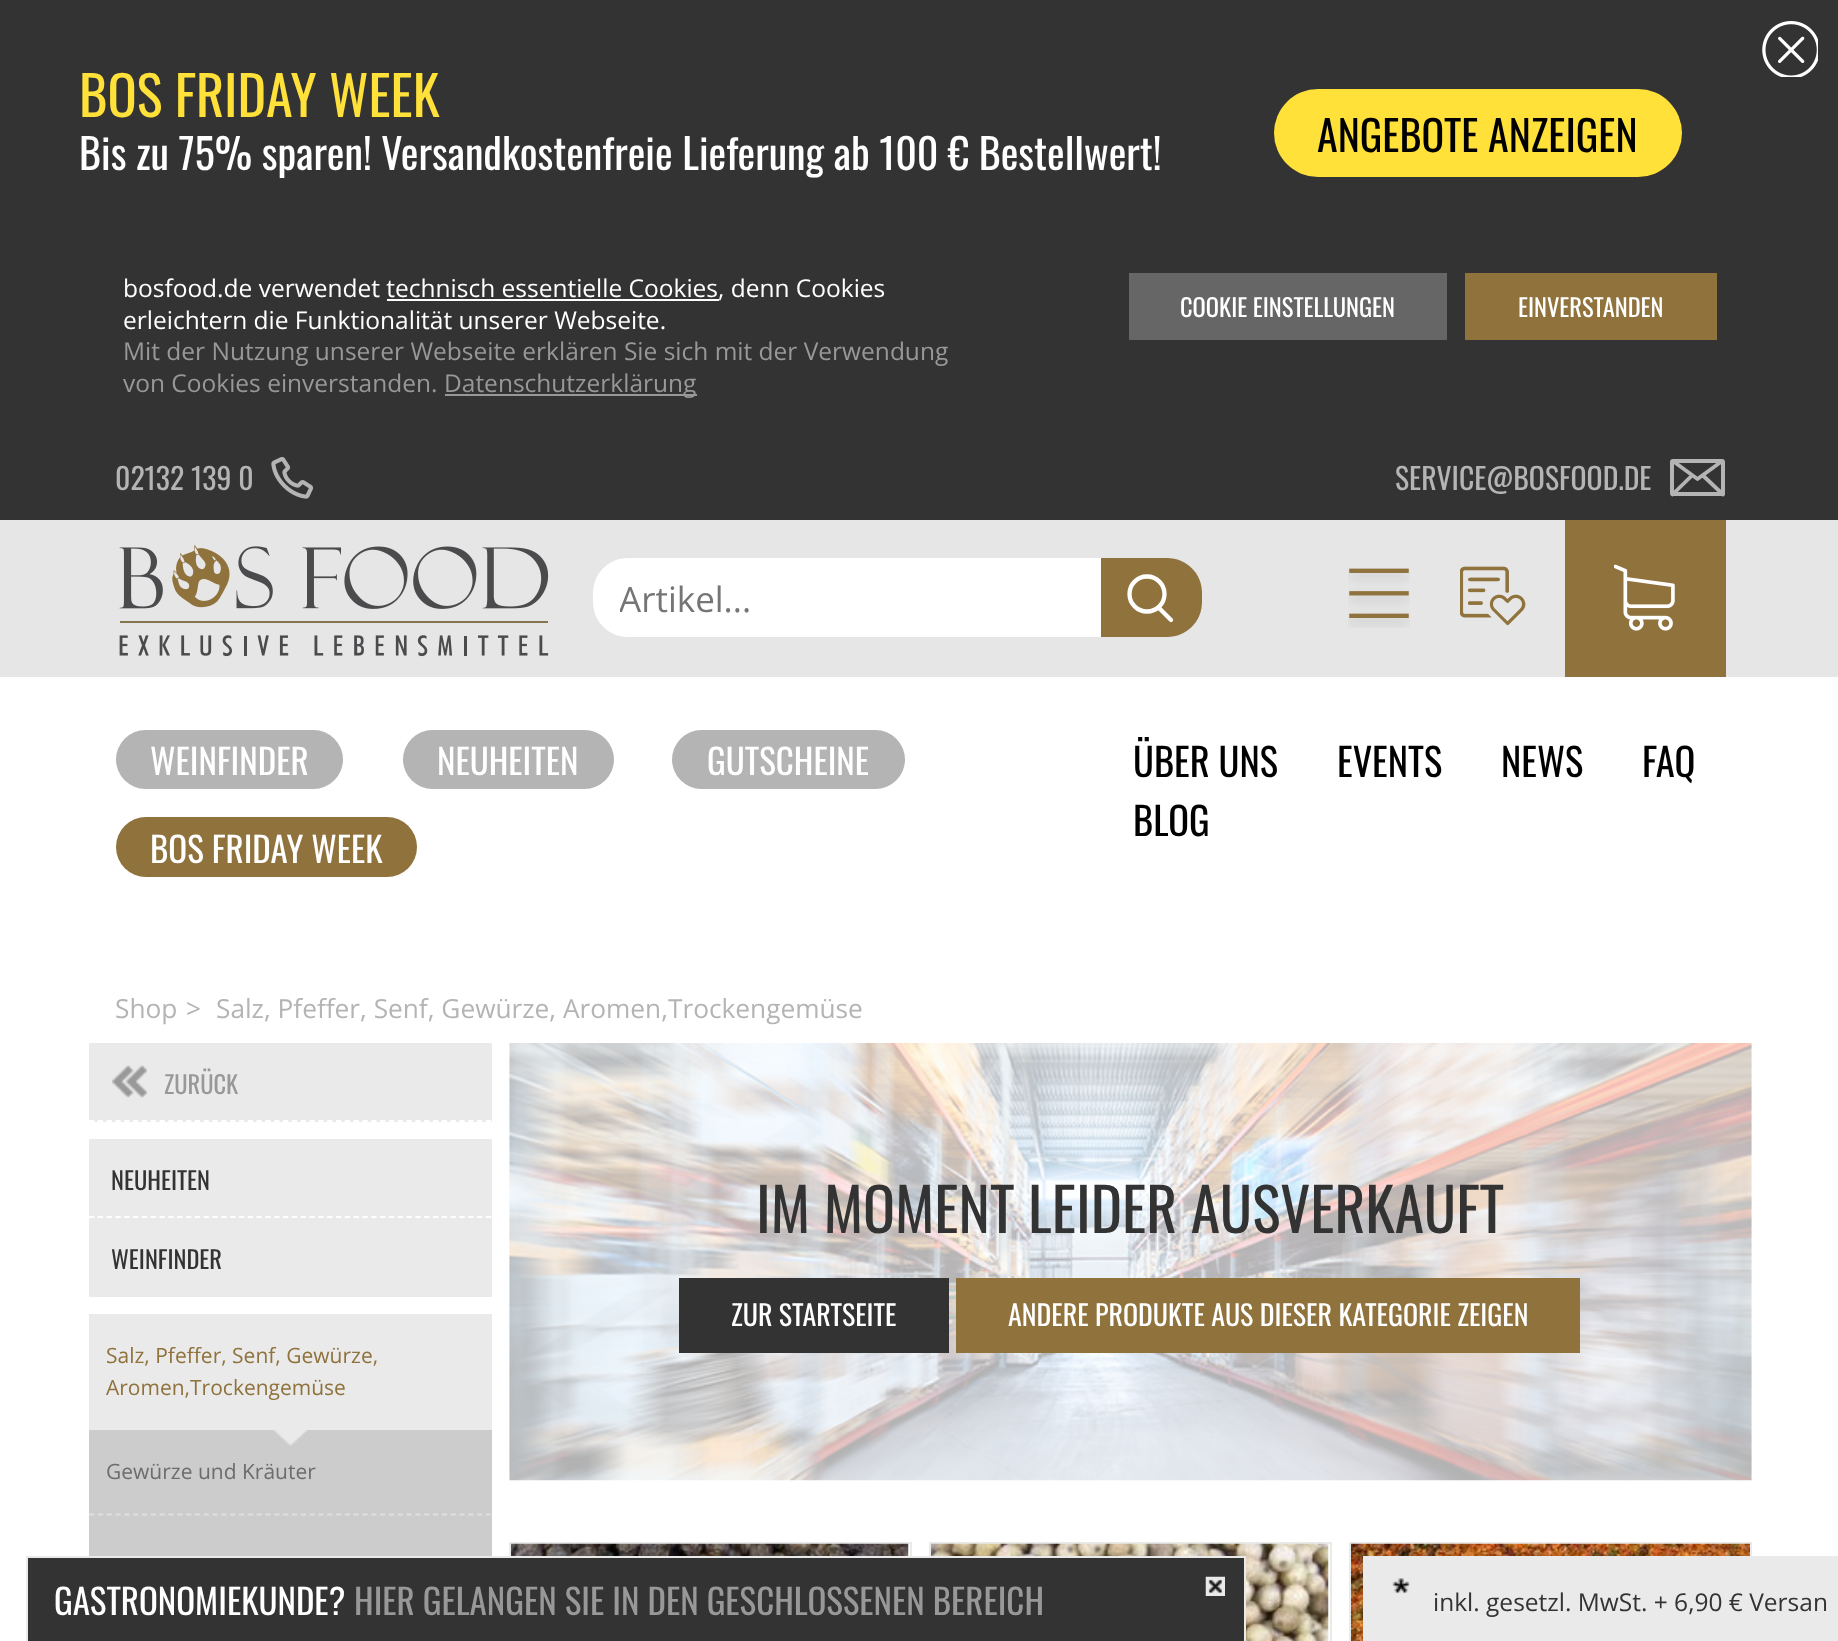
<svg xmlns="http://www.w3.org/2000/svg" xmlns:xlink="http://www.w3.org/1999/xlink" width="1838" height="1641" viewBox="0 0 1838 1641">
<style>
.cls-1{font:54.25px Oswald;fill:#ffe139}
.cls-2{font:42px Oswald;fill:#ffffff}
.cls-3{font:42px Oswald;fill:#000000}
.cls-4{font:35px Oswald;fill:#ffffff}
.cls-5{font:35px Oswald;fill:#989898}
.cls-6{font:24.5px Open Sans;fill:#333333}
.cls-7{font:24.5px Open Sans;fill:#ffffff}
.cls-8{font:24.5px Open Sans;fill:#989898}
.cls-9{font:24.5px Oswald;fill:#ffffff}
.cls-10{font:29.75px Oswald;fill:#b4b4b4}
.cls-11{font:35px Open Sans;fill:#757575}
.cls-12{font:38.5px Oswald;fill:#000000}
.cls-13{font:26.25px Open Sans;fill:#b4b4b4}
.cls-14{font:24.5px Oswald;fill:#989898}
.cls-15{font:24.5px Oswald;fill:#333333}
.cls-16{font:21px Open Sans;fill:#8f723c}
.cls-17{font:21px Open Sans;fill:#6d6d6d}
.cls-18{font:59.5px Oswald;fill:#333333}
.cls-19{font:28px Oswald;fill:#ffffff}
</style>
<defs>
<clipPath id="clip1"><rect x="620" y="574" width="455" height="47"/></clipPath>
</defs>
<rect width="100%" height="100%" fill="#ffffff"/>
<rect fill="#333333" x="0" y="0" width="1838" height="520"/>
<image xlink:href="image0.png" x="1762" y="21" width="56" height="56"/>
<rect fill="#ffe139" x="1274" y="89" width="408" height="88" rx="44"/>
<rect fill="none" stroke="#eaeaea" stroke-width="2" x="510" y="1543" width="401" height="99"/>
<rect fill="none" stroke="#eaeaea" stroke-width="2" x="930" y="1543" width="401" height="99"/>
<image xlink:href="image12.png" x="931" y="1543" width="398" height="98"/>
<rect fill="#333333" x="28" y="1558" width="1216" height="83"/>
<rect fill="#eaeaea" x="26" y="1556" width="1220" height="2"/>
<rect fill="#eaeaea" x="1244" y="1556" width="2" height="85"/>
<rect fill="#eaeaea" x="26" y="1556" width="2" height="85"/>
<image xlink:href="image1.png" x="1205" y="1576" width="20" height="20"/>
<rect fill="none" stroke="#eaeaea" stroke-width="2" x="1350" y="1543" width="401" height="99"/>
<image xlink:href="image13.png" x="1351" y="1543" width="399" height="98"/>
<rect fill="#eaeaea" x="1363" y="1556" width="475" height="85"/>
<image xlink:href="image2.png" x="1392" y="1578" width="18" height="16"/>
<rect fill="#ffffff" x="387" y="299" width="332" height="2"/>
<rect fill="#989898" x="445" y="394" width="252" height="2"/>
<rect fill="#666666" x="1129" y="273" width="318" height="67"/>
<rect fill="#8f723c" x="1465" y="273" width="252" height="67"/>
<image xlink:href="image3.png" x="271" y="457" width="42" height="42"/>
<rect fill="none" stroke="#b4b4b4" stroke-width="4" x="1672" y="461" width="51" height="33" rx="1"/>
<path fill="none" stroke="#b4b4b4" stroke-width="3.8" stroke-linecap="round" stroke-linejoin="round" d="M1673.5 461.5L1697.5 479L1721.5 461.5"/>
<path fill="none" stroke="#b4b4b4" stroke-width="3.8" stroke-linecap="round" d="M1672.5 494.5L1691.5 476M1723 494.5L1703.5 476"/>
<rect fill="#e6e6e6" x="0" y="520" width="1838" height="157"/>
<image xlink:href="image4.png" x="119" y="545" width="430" height="112"/>
<path fill="#ffffff" d="M628 558H1101V637H628C608.5 637 593 621.5 593 602V593C593 573.5 608.5 558 628 558Z"/>
<path fill="#8f723c" d="M1101 558H1167C1186.5 558 1202 573.5 1202 593V602C1202 621.5 1186.5 637 1167 637H1101Z"/>
<circle fill="none" stroke="#ffffff" stroke-width="4.3" cx="1147" cy="594" r="17.5"/>
<path fill="none" stroke="#ffffff" stroke-width="4.3" stroke-linecap="round" d="M1159 608L1171 620"/>
<image xlink:href="image5.png" x="1348" y="568" width="62" height="60"/>
<image xlink:href="image6.png" x="1460" y="566" width="66" height="60"/>
<rect fill="#8f723c" x="1565" y="520" width="161" height="157"/>
<image xlink:href="image7.png" x="1614" y="564" width="61" height="67"/>
<rect fill="#b4b4b4" x="116" y="730" width="227" height="59" rx="29.5"/>
<rect fill="#b4b4b4" x="403" y="730" width="211" height="59" rx="29.5"/>
<rect fill="#b4b4b4" x="672" y="730" width="233" height="59" rx="29.5"/>
<rect fill="#8f723c" x="116" y="817" width="301" height="60" rx="30"/>
<rect fill="#eaeaea" x="89" y="1043" width="403" height="79"/>
<image xlink:href="image8.png" x="112" y="1065" width="35" height="33"/>
<path fill="none" stroke="#ffffff" stroke-width="1.8" stroke-dasharray="5.25 3.57" d="M89 1121H492"/>
<rect fill="#eaeaea" x="89" y="1139" width="403" height="158"/>
<path fill="none" stroke="#ffffff" stroke-width="1.8" stroke-dasharray="5.25 3.57" d="M89 1217H492"/>
<rect fill="#eaeaea" x="89" y="1314" width="403" height="116"/>
<rect fill="#cccccc" x="89" y="1430" width="403" height="126"/>
<image xlink:href="image9.png" x="273" y="1430" width="35" height="16"/>
<path fill="none" stroke="#dfdfdf" stroke-width="1.8" stroke-dasharray="5.25 3.57" d="M89 1514.5H492"/>
<image xlink:href="image10.png" x="509" y="1043" width="1243" height="438"/>
<rect fill="#333333" x="679" y="1278" width="270" height="75"/>
<rect fill="#8f723c" x="956" y="1278" width="624" height="75"/>
<image xlink:href="image11.png" x="511" y="1543" width="398" height="13"/>
<text class="cls-1" x="79" y="117">BOS FRIDAY WEEK</text>
<text class="cls-2" x="79" y="170">Bis zu 75% sparen! Versandkostenfreie Lieferung ab 100 € Bestellwert!</text>
<text class="cls-3" x="1317" y="152">ANGEBOTE ANZEIGEN</text>
<text class="cls-4" x="54" y="1615">GASTRONOMIEKUNDE?</text>
<text class="cls-5" x="354" y="1615">HIER GELANGEN SIE IN DEN GESCHLOSSENEN BEREICH</text>
<text class="cls-6" x="1433" y="1611">inkl. gesetzl. MwSt. + 6,90 € Versan</text>
<text class="cls-7"><tspan x="123" y="297">bosfood.de verwendet technisch essentielle Cookies, denn Cookies</tspan><tspan x="123" y="329">erleichtern die Funktionalität unserer Webseite.</tspan></text>
<text class="cls-8"><tspan x="123" y="360">Mit der Nutzung unserer Webseite erklären Sie sich mit der Verwendung</tspan><tspan x="123" y="392">von Cookies einverstanden.</tspan></text>
<text class="cls-8" x="444" y="392">Datenschutzerklärung</text>
<text class="cls-9" x="1180" y="317">COOKIE EINSTELLUNGEN</text>
<text class="cls-9" x="1518" y="317">EINVERSTANDEN</text>
<text class="cls-10" x="115" y="490">02132 139 0</text>
<text class="cls-10" x="1395" y="490">SERVICE@BOSFOOD.DE</text>
<g clip-path="url(#clip1)">
<text class="cls-11" x="619" y="612">Artikel...</text>
</g>
<text class="cls-4" x="150" y="775">WEINFINDER</text>
<text class="cls-4" x="437" y="775">NEUHEITEN</text>
<text class="cls-4" x="707" y="775">GUTSCHEINE</text>
<text class="cls-4" x="150" y="863">BOS FRIDAY WEEK</text>
<text class="cls-12" x="1133" y="777">ÜBER UNS</text>
<text class="cls-12" x="1337" y="777">EVENTS</text>
<text class="cls-12" x="1501" y="777">NEWS</text>
<text class="cls-12" x="1642" y="777">FAQ</text>
<text class="cls-12" x="1133" y="836">BLOG</text>
<text class="cls-13" x="115" y="1018">Shop</text>
<text class="cls-13" x="186" y="1018">&gt;</text>
<text class="cls-13" x="216" y="1018">Salz, Pfeffer, Senf, Gewürze, Aromen,Trockengemüse</text>
<text class="cls-14" x="164" y="1094">ZURÜCK</text>
<text class="cls-15" x="111" y="1190">NEUHEITEN</text>
<text class="cls-15" x="111" y="1269">WEINFINDER</text>
<text class="cls-16"><tspan x="106" y="1363">Salz, Pfeffer, Senf, Gewürze,</tspan><tspan x="106" y="1395">Aromen,Trockengemüse</tspan></text>
<text class="cls-17" x="106" y="1479">Gewürze und Kräuter</text>
<text class="cls-18" x="756" y="1233">IM MOMENT LEIDER AUSVERKAUFT</text>
<text class="cls-19" x="731" y="1326">ZUR STARTSEITE</text>
<text class="cls-19" x="1008" y="1326">ANDERE PRODUKTE AUS DIESER KATEGORIE ZEIGEN</text>
</svg>
